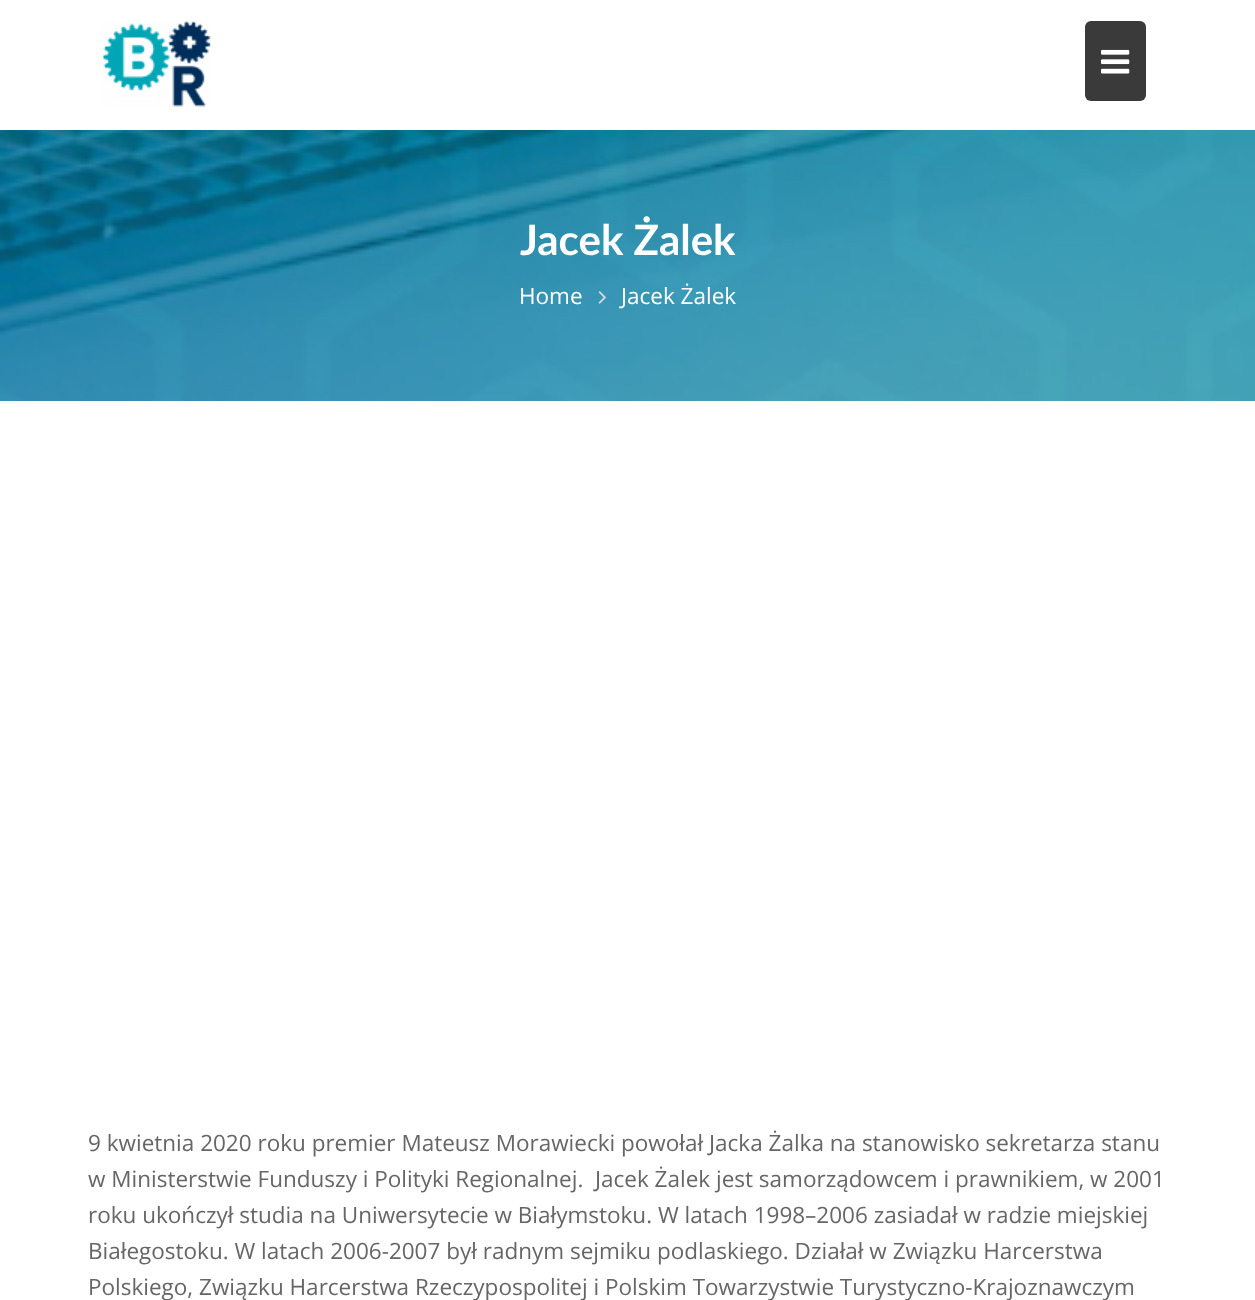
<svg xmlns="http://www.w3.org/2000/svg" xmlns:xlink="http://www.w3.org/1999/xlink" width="1255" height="1300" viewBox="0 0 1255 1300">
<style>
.cls-1{font:bold 42px Lato;fill:#ffffff}
.cls-2{font:22.5px Open Sans;fill:#ffffff}
.cls-3{font:22.5px Open Sans;fill:#666666}
</style>
<rect width="100%" height="100%" fill="#ffffff"/>
<image xlink:href="image0.png" x="103" y="20" width="108" height="87"/>
<rect fill="#3a3a3a" x="1085" y="21" width="61" height="80" rx="6"/>
<image xlink:href="image1.png" x="1101" y="49" width="29" height="25"/>
<image xlink:href="image2.png" x="0" y="130" width="1255" height="271"/>
<image xlink:href="image3.png" x="598" y="291" width="8" height="13"/>
<text class="cls-1" x="520" y="255">Jacek Żalek</text>
<text class="cls-2" x="519" y="304">Home</text>
<text class="cls-2" x="621" y="304">Jacek Żalek</text>
<text class="cls-3" xml:space="preserve"><tspan x="88" y="1151">9 kwietnia 2020 roku premier Mateusz Morawiecki powołał Jacka Żalka na stanowisko sekretarza stanu</tspan><tspan x="88" y="1187">w Ministerstwie Funduszy i Polityki Regionalnej.  Jacek Żalek jest samorządowcem i prawnikiem, w 2001</tspan><tspan x="88" y="1223">roku ukończył studia na Uniwersytecie w Białymstoku. W latach 1998–2006 zasiadał w radzie miejskiej</tspan><tspan x="88" y="1259">Białegostoku. W latach 2006-2007 był radnym sejmiku podlaskiego. Działał w Związku Harcerstwa</tspan><tspan x="88" y="1295">Polskiego, Związku Harcerstwa Rzeczypospolitej i Polskim Towarzystwie Turystyczno-Krajoznawczym</tspan></text>
</svg>
